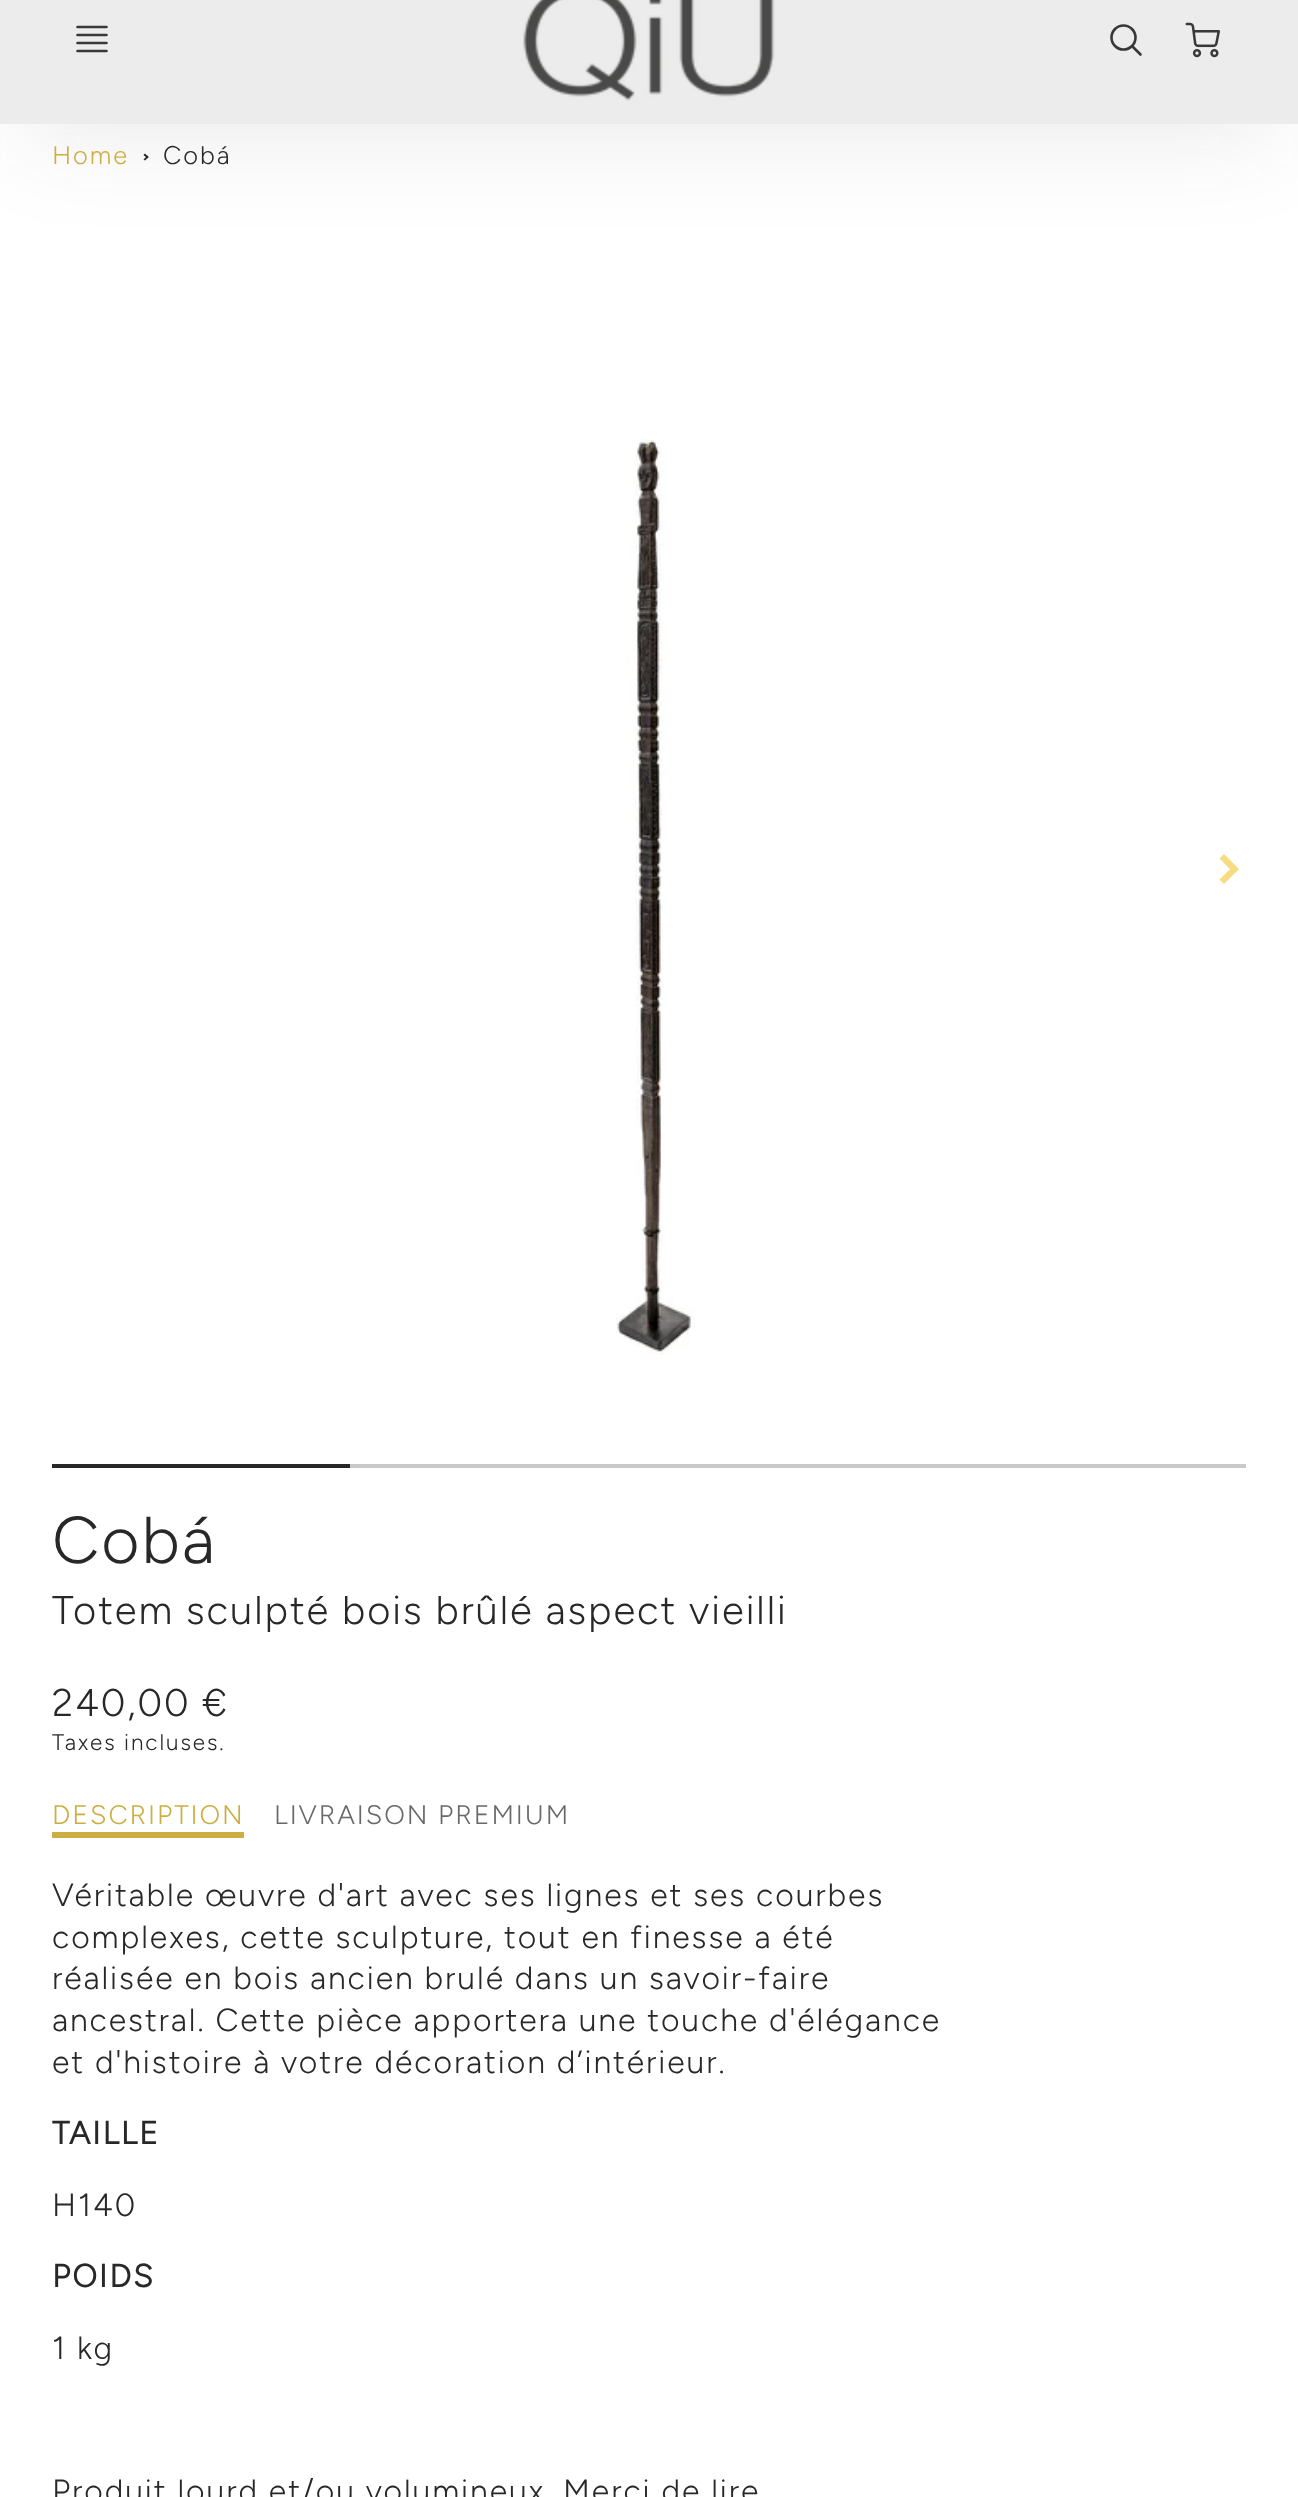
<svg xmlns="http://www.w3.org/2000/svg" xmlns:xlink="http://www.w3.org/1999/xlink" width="1298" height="2497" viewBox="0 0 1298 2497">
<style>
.cls-1{font:300 25.5px Figtree;letter-spacing:1.92px;fill:#ceae42}
.cls-2{font:300 25.5px Figtree;letter-spacing:1.92px;fill:#282828}
.cls-3{font:300 66px Figtree;letter-spacing:1.92px;fill:#282828}
.cls-4{font:300 40px Figtree;letter-spacing:1.92px;fill:#282828}
.cls-5{font:300 38.5px Figtree;letter-spacing:1.92px;fill:#282828}
.cls-6{font:300 22.5px Figtree;letter-spacing:1.92px;fill:#282828}
.cls-7{font:300 26.75px Figtree;letter-spacing:1.92px;fill:#ceae42}
.cls-8{font:300 26.75px Figtree;letter-spacing:1.92px;fill:#696969}
.cls-9{font:300 32px Figtree;letter-spacing:1.92px;fill:#282828}
.cls-10{font:bold 32px Figtree;letter-spacing:1.92px;fill:#282828}
</style>
<rect width="100%" height="100%" fill="#ffffff"/>
<path fill="#282828" d="M145 153.5L148.5 157L147.5 158.5L143.5 155Z"/>
<path fill="#282828" d="M147.5 155.5L148.5 157L145 160.5L143.5 159.5Z"/>
<rect fill="#292929" fill-opacity="0.1" filter="blur(50px)" x="18" y="6" width="1258" height="126"/>
<rect fill="#ececec" x="0" y="0" width="1298" height="124"/>
<path fill="none" stroke="#393839" stroke-width="2.6" stroke-linecap="round" stroke-linejoin="round" d="M106.5 43H77.5M106.5 51H77.5M106.5 27H77.5M106.5 35H77.5"/>
<image xlink:href="image0.png" x="523" y="0" width="252" height="101"/>
<circle fill="none" stroke="#393839" stroke-width="2.6" cx="1123.5" cy="37.5" r="12"/>
<path fill="none" stroke="#393839" stroke-width="2.6" stroke-linecap="round" stroke-linejoin="round" d="M1140.5 54.5L1132.5 46.5"/>
<image xlink:href="image1.png" x="1185" y="22" width="35" height="36"/>
<image xlink:href="image2.png" x="616" y="439" width="79" height="916"/>
<path fill="#f7dd81" d="M1239 869L1224 854L1219.5 858.5L1230 869L1219.5 879.5L1224 884Z"/>
<rect fill="#282828" x="52" y="1464" width="298" height="4"/>
<rect fill="#c9c9c9" x="350" y="1464" width="896" height="4"/>
<rect fill="#ceae42" x="52" y="1832" width="192" height="6"/>
<text class="cls-1" x="52" y="164">Home</text>
<text class="cls-2" x="163" y="164">Cobá</text>
<text class="cls-3" x="52" y="1563">Cobá</text>
<text class="cls-4" x="52" y="1624">Totem sculpté bois brûlé aspect vieilli</text>
<text class="cls-5" x="52" y="1716">240,00 €</text>
<text class="cls-6" x="52" y="1750">Taxes incluses.</text>
<text class="cls-7" x="52" y="1824">DESCRIPTION</text>
<text class="cls-8" x="274" y="1824">LIVRAISON PREMIUM</text>
<text class="cls-9"><tspan x="52" y="1906">Véritable œuvre d'art avec ses lignes et ses courbes</tspan><tspan x="52" y="1948">complexes, cette sculpture, tout en finesse a été</tspan><tspan x="52" y="1989">réalisée en bois ancien brulé dans un savoir-faire</tspan><tspan x="52" y="2031">ancestral. Cette pièce apportera une touche d'élégance</tspan><tspan x="52" y="2073">et d'histoire à votre décoration d’intérieur.</tspan></text>
<text class="cls-10" x="52" y="2144">TAILLE</text>
<text class="cls-9" x="52" y="2216">H140</text>
<text class="cls-10" x="52" y="2287">POIDS</text>
<text class="cls-9" x="52" y="2359">1 kg</text>
<text class="cls-9" x="52" y="2502">Produit lourd et/ou volumineux. Merci de lire</text>
</svg>
